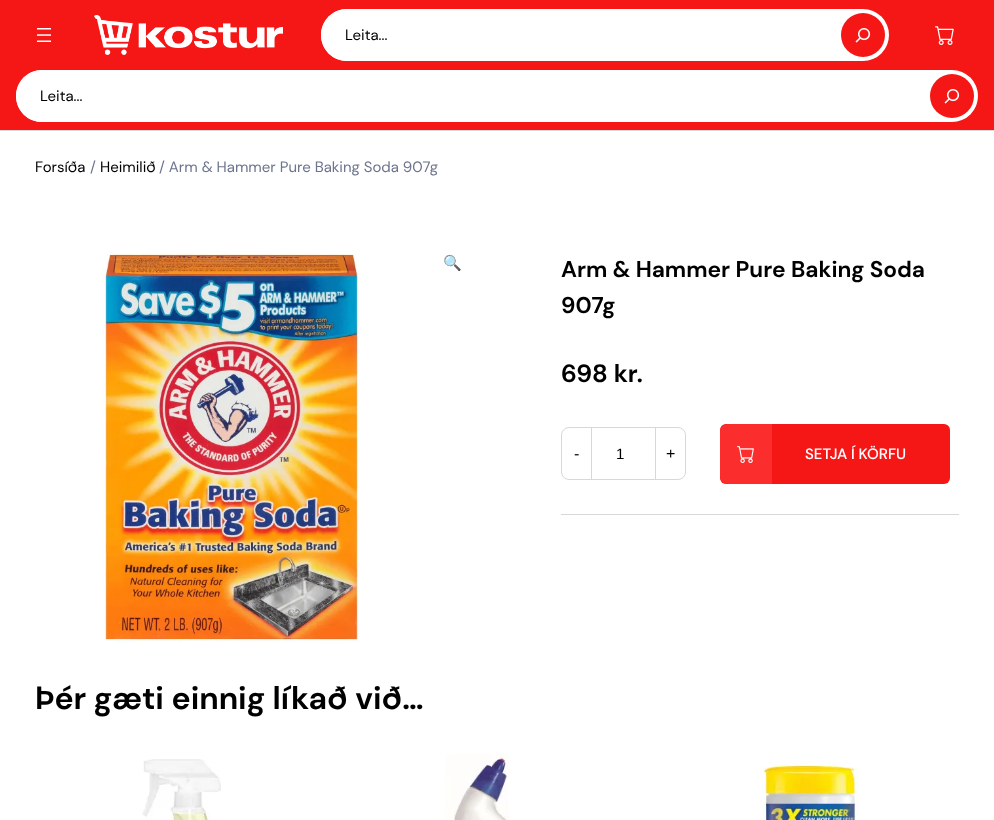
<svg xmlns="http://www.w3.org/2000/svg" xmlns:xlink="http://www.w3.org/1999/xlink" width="994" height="820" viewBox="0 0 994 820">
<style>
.cls-1{font:15px DM Sans;fill:#000000}
.cls-2{font:15px DM Sans;fill:#6d758d}
.cls-3{font:15px Noto Color Emoji;fill:#252f3d}
.cls-4{font:bold 22.75px DM Sans;fill:#000000}
.cls-5{font:bold 25px DM Sans;fill:#000000}
.cls-6{font:16px Liberation Sans;fill:#000000}
.cls-7{font:15px Liberation Sans;fill:#000000}
.cls-8{font:500 15px DM Sans;fill:#ffffff}
.cls-9{font:bold 32px DM Sans;fill:#000000}
</style>
<rect width="100%" height="100%" fill="#ffffff"/>
<rect fill="#f51616" x="0" y="0" width="994" height="130"/>
<image xlink:href="image0.png" x="37" y="28" width="14" height="14"/>
<image xlink:href="image1.png" x="94" y="15" width="189" height="40"/>
<rect fill="#ffffff" x="321" y="9" width="568" height="52" rx="26"/>
<path fill="#ffffff" d="M347 9H837V61H347C332.5 61 321 49.5 321 35C321 20.5 332.5 9 347 9Z"/>
<circle fill="#f51616" cx="863" cy="35" r="22"/>
<image xlink:href="image2.png" x="855" y="28" width="16" height="15"/>
<image xlink:href="image3.png" x="935" y="26" width="19" height="19"/>
<rect fill="#d8d8d8" x="0" y="130" width="994" height="1"/>
<rect fill="#ffffff" x="16" y="70" width="962" height="52" rx="26"/>
<path fill="#ffffff" d="M42 70H926V122H42C27.5 122 16 110.5 16 96C16 81.5 27.5 70 42 70Z"/>
<circle fill="#f51616" cx="952" cy="96" r="22"/>
<image xlink:href="image2.png" x="944" y="89" width="16" height="15"/>
<image xlink:href="image4.png" x="103" y="251" width="257" height="392"/>
<rect fill="#d8d8d8" x="561" y="514" width="398" height="1"/>
<rect fill="none" stroke="#d8d8d8" x="561.5" y="427.5" width="124" height="52" rx="7.5"/>
<rect fill="#d8d8d8" x="591" y="428" width="1" height="51"/>
<rect fill="#d8d8d8" x="655" y="428" width="1" height="51"/>
<rect fill="#f51616" x="720" y="424" width="230" height="60" rx="6"/>
<path fill="#fb2d2d" d="M728 424H772V484H728C723.5 484 720 480.5 720 476V432C720 427.5 723.5 424 728 424Z"/>
<image xlink:href="image5.png" x="737" y="446" width="17" height="17"/>
<image xlink:href="image6.png" x="142" y="759" width="79" height="61"/>
<image xlink:href="image7.png" x="445" y="754" width="64" height="66"/>
<image xlink:href="image8.png" x="762" y="761" width="97" height="59"/>
<text class="cls-1" x="345" y="40">Leita...</text>
<text class="cls-1" x="40" y="101">Leita...</text>
<text class="cls-1" x="35" y="172">Forsíða</text>
<text class="cls-2" x="90" y="172">/</text>
<text class="cls-1" x="100" y="172">Heimilið</text>
<text class="cls-2" x="159" y="172">/ Arm &amp; Hammer Pure Baking Soda 907g</text>
<text class="cls-3" x="443" y="268">🔍</text>
<text class="cls-4"><tspan x="561" y="277">Arm &amp; Hammer Pure Baking Soda</tspan><tspan x="561" y="313">907g</tspan></text>
<text class="cls-5" x="561" y="382">698 kr.</text>
<text class="cls-6" x="574" y="459">-</text>
<text class="cls-7" x="616" y="459">1</text>
<text class="cls-6" x="666" y="459">+</text>
<text class="cls-8" x="805" y="459">SETJA Í KÖRFU</text>
<text class="cls-9" x="35" y="709">Þér gæti einnig líkað við…</text>
</svg>
